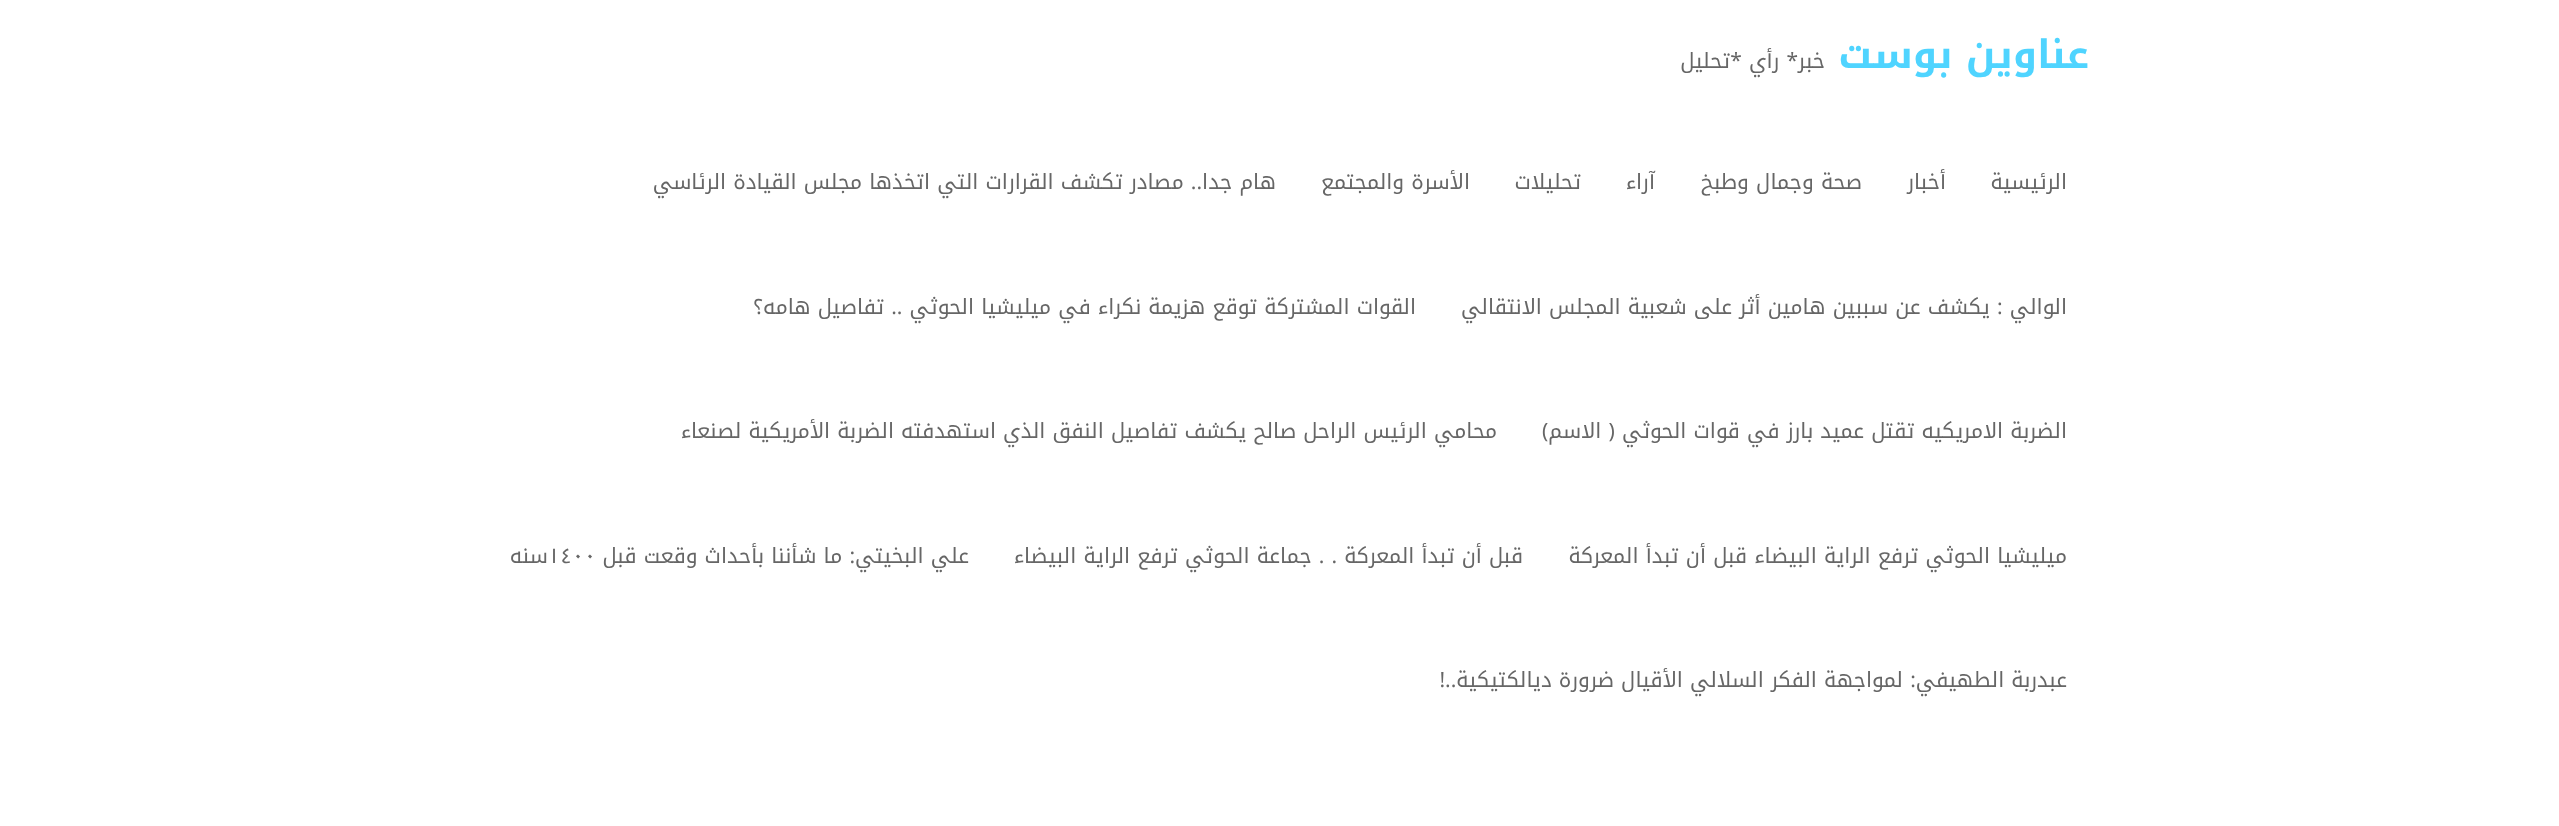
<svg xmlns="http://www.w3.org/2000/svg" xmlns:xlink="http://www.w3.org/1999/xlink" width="2559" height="826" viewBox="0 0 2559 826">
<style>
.cls-1{font:bold 39px Noto Kufi Arabic;direction:rtl;fill:#4fd4ff}
.cls-2{font:21px Noto Kufi Arabic;direction:rtl;fill:#666666}
.cls-3{font:21px Noto Kufi Arabic;fill:#666666}
</style>
<rect width="100%" height="100%" fill="#ffffff"/>
<text class="cls-1" x="2089" y="68">عناوين بوست</text>
<text class="cls-2" x="1825" y="68">خبر* رأي *تحليل</text>
<text class="cls-2" x="2067" y="189">الرئيسية</text>
<text class="cls-2" x="1946" y="189">أخبار</text>
<text class="cls-2" x="1862" y="189">صحة وجمال وطبخ</text>
<text class="cls-2" x="1655" y="189">آراء</text>
<text class="cls-2" x="1581" y="189">تحليلات</text>
<text class="cls-2" x="1470" y="189">الأسرة والمجتمع</text>
<text class="cls-2" x="1276" y="189">هام جدا.. مصادر تكشف القرارات التي اتخذها مجلس القيادة الرئاسي</text>
<text class="cls-2" x="2067" y="314">الوالي : يكشف عن سببين هامين أثر على شعبية المجلس الانتقالي</text>
<text class="cls-2" x="1416" y="314">القوات المشتركة توقع هزيمة نكراء في ميليشيا الحوثي .. تفاصيل هامه؟</text>
<text class="cls-2" x="2067" y="438">الضربة الامريكيه تقتل عميد بارز في قوات الحوثي ( الاسم)</text>
<text class="cls-2" x="1497" y="438">محامي الرئيس الراحل صالح يكشف تفاصيل النفق الذي استهدفته الضربة الأمريكية لصنعاء</text>
<text class="cls-2" x="2067" y="563">ميليشيا الحوثي ترفع الراية البيضاء قبل أن تبدأ المعركة</text>
<text class="cls-2" x="1523" y="563">قبل أن تبدأ المعركة . . جماعة الحوثي ترفع الراية البيضاء</text>
<text class="cls-2" x="969" y="563">علي البخيتي: ما شأننا بأحداث وقعت قبل</text>
<text class="cls-3" x="548" y="563">١٤٠٠</text>
<text class="cls-2" x="548" y="563">سنه</text>
<text class="cls-2" x="2067" y="687">عبدربة الطهيفي: لمواجهة الفكر السلالي الأقيال ضرورة ديالكتيكية..!</text>
</svg>
